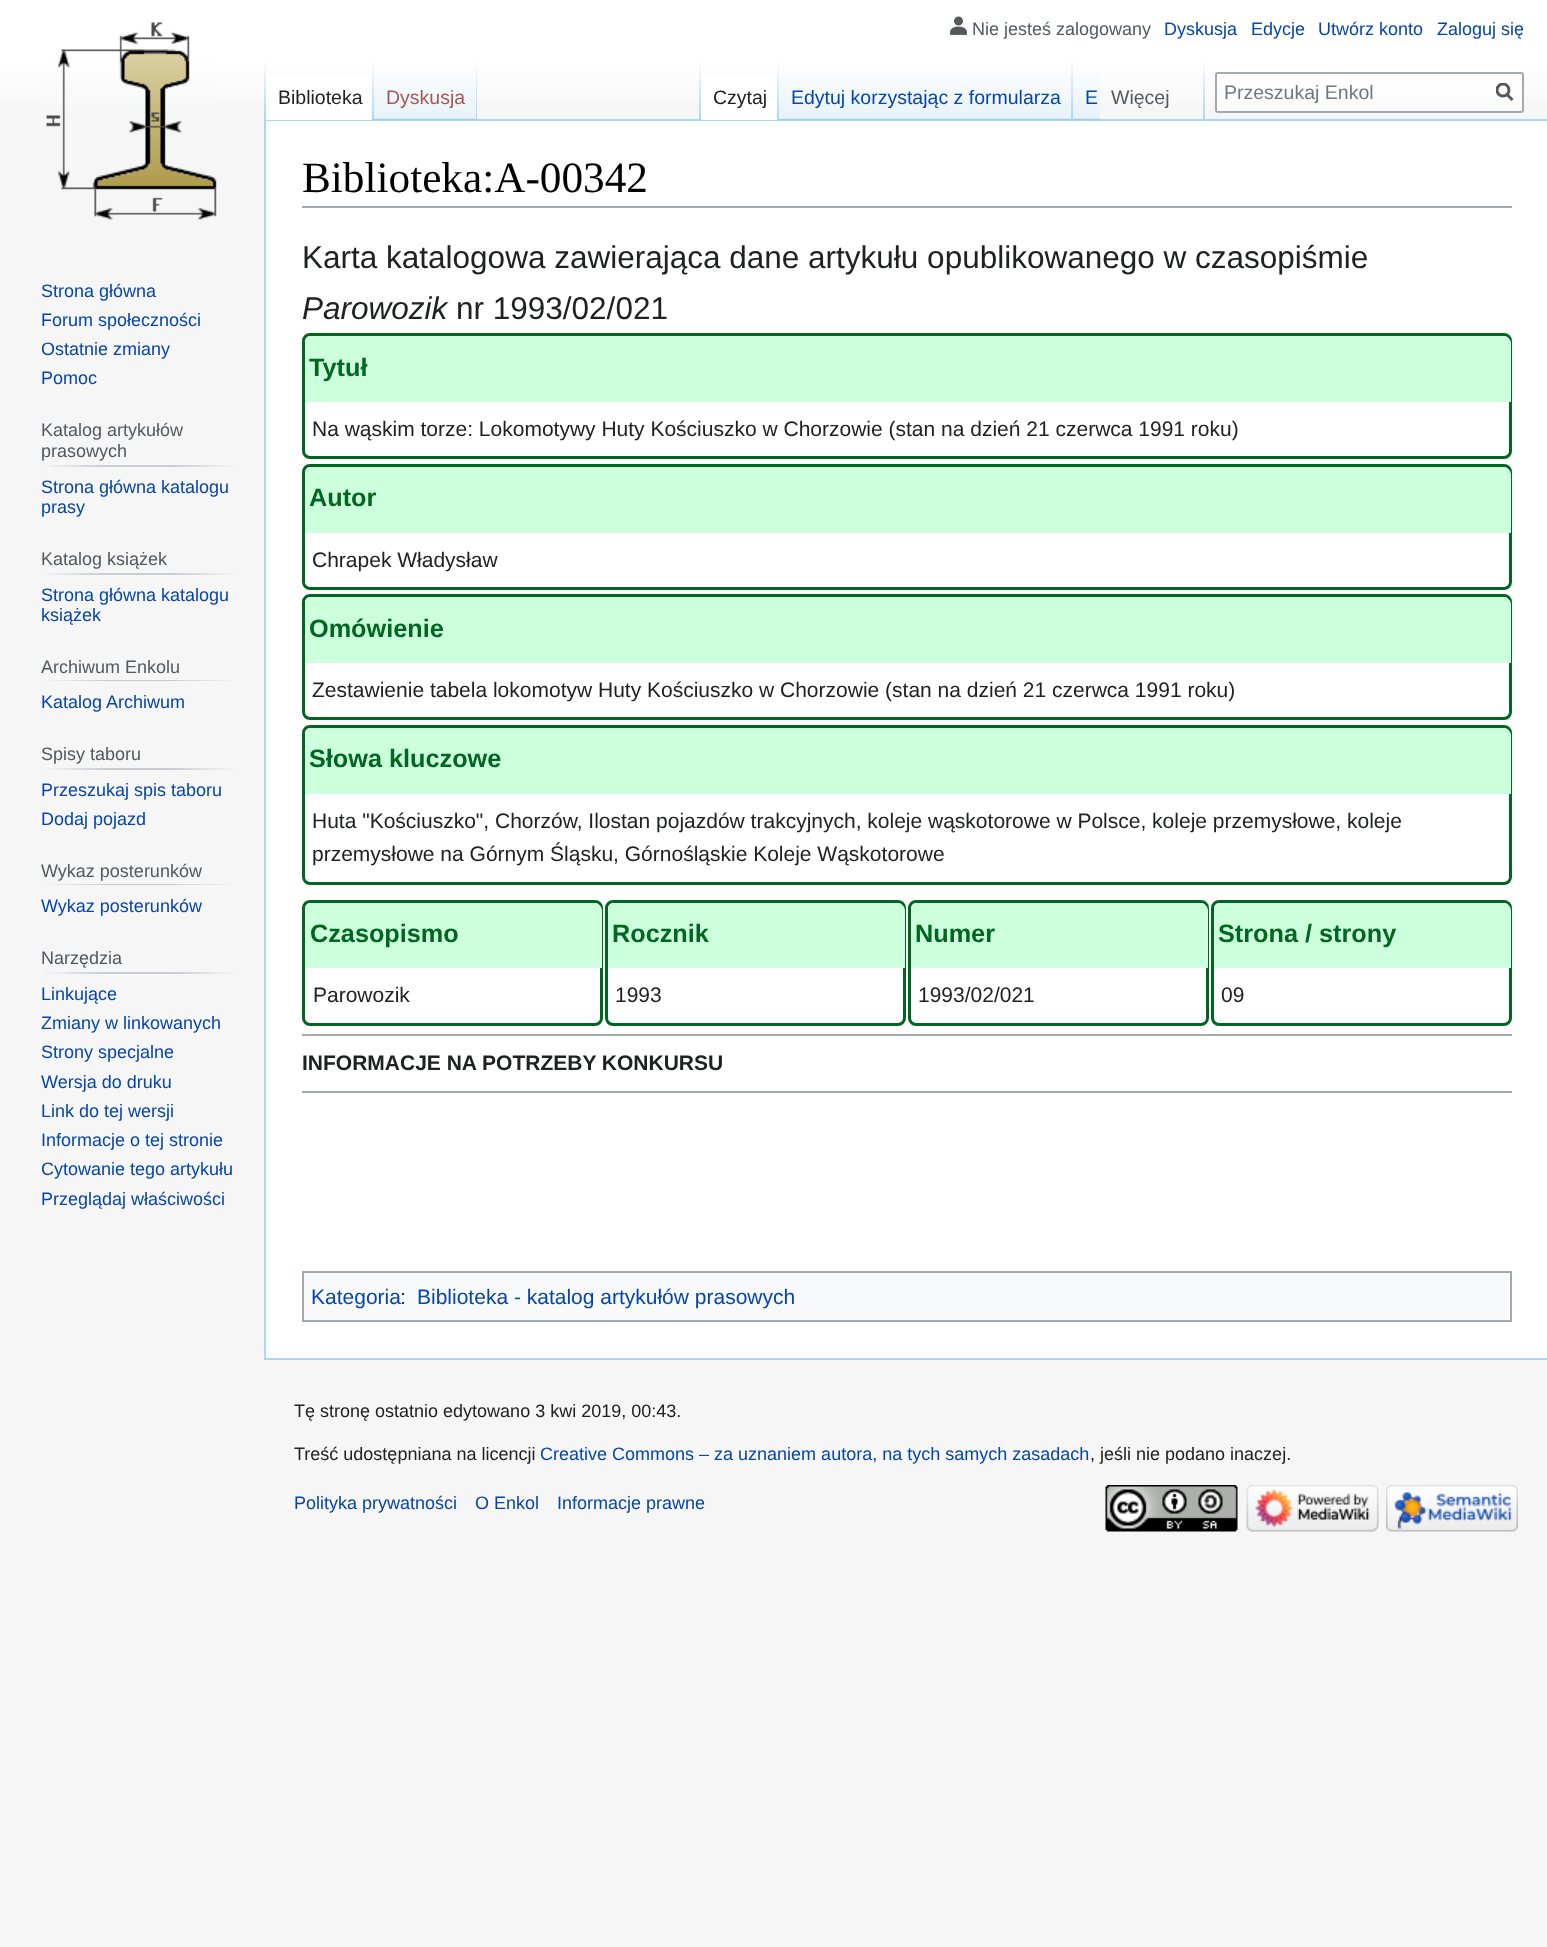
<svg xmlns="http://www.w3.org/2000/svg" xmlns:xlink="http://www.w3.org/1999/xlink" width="1547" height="1947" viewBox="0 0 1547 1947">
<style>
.cls-1{font:18px Liberation Sans;fill:#54595d}
.cls-2{font:18px Liberation Sans;fill:#0645ad}
.cls-3{font:19.5px Liberation Sans;fill:#202122}
.cls-4{font:19.5px Liberation Sans;fill:#a55858}
.cls-5{font:19.5px Liberation Sans;fill:#0645ad}
.cls-6{font:19.5px Liberation Sans;fill:#54595d}
.cls-7{font:19.5px Liberation Sans;fill:#72777d}
.cls-8{font:43.25px Liberation Serif;fill:#000000}
.cls-9{font:31.5px Liberation Sans;fill:#202122}
.cls-10{font:italic 31.5px Liberation Sans;fill:#202122}
.cls-11{font:bold 25.25px Liberation Sans;fill:#006622}
.cls-12{font:21px Liberation Sans;fill:#202122}
.cls-13{font:bold 21px Liberation Sans;fill:#202122}
.cls-14{font:21px Liberation Sans;fill:#0645ad}
.cls-15{font:18px Liberation Sans;fill:#202122}
</style>
<defs>
<linearGradient id="g1" gradientUnits="userSpaceOnUse" x1="774" y1="0" x2="774" y2="120"><stop offset="0.5" stop-color="#ffffff"/><stop offset="1" stop-color="#f6f6f6"/></linearGradient>
<linearGradient id="g2" gradientUnits="userSpaceOnUse" x1="265" y1="60" x2="265" y2="120"><stop offset="0" stop-color="#a7d7f9" stop-opacity="0"/><stop offset="1" stop-color="#a7d7f9"/></linearGradient>
<linearGradient id="g3" gradientUnits="userSpaceOnUse" x1="373" y1="60" x2="373" y2="120"><stop offset="0" stop-color="#ffffff"/><stop offset="1" stop-color="#a7d7f9"/></linearGradient>
<linearGradient id="g4" gradientUnits="userSpaceOnUse" x1="425" y1="120" x2="425" y2="60"><stop offset="0" stop-color="#77c1f6"/><stop offset="0.03" stop-color="#e8f2f8"/><stop offset="1" stop-color="#ffffff"/></linearGradient>
<linearGradient id="g5" gradientUnits="userSpaceOnUse" x1="476" y1="60" x2="476" y2="120"><stop offset="0" stop-color="#a7d7f9" stop-opacity="0"/><stop offset="1" stop-color="#a7d7f9"/></linearGradient>
<linearGradient id="g6" gradientUnits="userSpaceOnUse" x1="700" y1="60" x2="700" y2="120"><stop offset="0" stop-color="#a7d7f9" stop-opacity="0"/><stop offset="1" stop-color="#a7d7f9"/></linearGradient>
<linearGradient id="g7" gradientUnits="userSpaceOnUse" x1="778" y1="60" x2="778" y2="120"><stop offset="0" stop-color="#ffffff"/><stop offset="1" stop-color="#a7d7f9"/></linearGradient>
<linearGradient id="g8" gradientUnits="userSpaceOnUse" x1="926" y1="120" x2="926" y2="60"><stop offset="0" stop-color="#77c1f6"/><stop offset="0.03" stop-color="#e8f2f8"/><stop offset="1" stop-color="#ffffff"/></linearGradient>
<linearGradient id="g9" gradientUnits="userSpaceOnUse" x1="1072" y1="60" x2="1072" y2="120"><stop offset="0" stop-color="#a7d7f9" stop-opacity="0"/><stop offset="1" stop-color="#a7d7f9"/></linearGradient>
<linearGradient id="g10" gradientUnits="userSpaceOnUse" x1="1086" y1="120" x2="1086" y2="60"><stop offset="0" stop-color="#77c1f6"/><stop offset="0.03" stop-color="#e8f2f8"/><stop offset="1" stop-color="#ffffff"/></linearGradient>
<linearGradient id="g11" gradientUnits="userSpaceOnUse" x1="1204" y1="60" x2="1204" y2="120"><stop offset="0" stop-color="#a7d7f9" stop-opacity="0"/><stop offset="1" stop-color="#a7d7f9"/></linearGradient>
<clipPath id="clip1"><rect x="1496" y="83" width="18" height="19"/></clipPath>
<linearGradient id="g12" gradientUnits="userSpaceOnUse" x1="41" y1="466" x2="237" y2="466"><stop offset="0" stop-color="#f6f6f6"/><stop offset="0.33" stop-color="#c8ccd1"/><stop offset="0.66" stop-color="#c8ccd1"/><stop offset="1" stop-color="#f6f6f6"/></linearGradient>
<linearGradient id="g13" gradientUnits="userSpaceOnUse" x1="41" y1="574" x2="237" y2="574"><stop offset="0" stop-color="#f6f6f6"/><stop offset="0.33" stop-color="#c8ccd1"/><stop offset="0.66" stop-color="#c8ccd1"/><stop offset="1" stop-color="#f6f6f6"/></linearGradient>
<linearGradient id="g14" gradientUnits="userSpaceOnUse" x1="41" y1="680" x2="237" y2="680"><stop offset="0" stop-color="#f6f6f6"/><stop offset="0.33" stop-color="#c8ccd1"/><stop offset="0.66" stop-color="#c8ccd1"/><stop offset="1" stop-color="#f6f6f6"/></linearGradient>
<linearGradient id="g15" gradientUnits="userSpaceOnUse" x1="41" y1="769" x2="237" y2="769"><stop offset="0" stop-color="#f6f6f6"/><stop offset="0.33" stop-color="#c8ccd1"/><stop offset="0.66" stop-color="#c8ccd1"/><stop offset="1" stop-color="#f6f6f6"/></linearGradient>
<linearGradient id="g16" gradientUnits="userSpaceOnUse" x1="41" y1="884" x2="237" y2="884"><stop offset="0" stop-color="#f6f6f6"/><stop offset="0.33" stop-color="#c8ccd1"/><stop offset="0.66" stop-color="#c8ccd1"/><stop offset="1" stop-color="#f6f6f6"/></linearGradient>
<linearGradient id="g17" gradientUnits="userSpaceOnUse" x1="41" y1="973" x2="237" y2="973"><stop offset="0" stop-color="#f6f6f6"/><stop offset="0.33" stop-color="#c8ccd1"/><stop offset="0.66" stop-color="#c8ccd1"/><stop offset="1" stop-color="#f6f6f6"/></linearGradient>
</defs>
<rect width="100%" height="100%" fill="#f6f6f6"/>
<rect fill="url(#g1)" x="0" y="0" width="1547" height="103"/>
<image xlink:href="image0.png" x="950" y="16" width="17" height="19"/>
<rect fill="#a7d7f9" x="264" y="119" width="1283" height="2"/>
<rect fill="#a7d7f9" x="264" y="1358" width="1283" height="2"/>
<rect fill="#a7d7f9" x="264" y="119" width="2" height="1240"/>
<rect fill="url(#g2)" x="264" y="60" width="2" height="60"/>
<rect fill="#ffffff" x="266" y="77" width="106" height="43"/>
<rect fill="url(#g3)" x="372" y="60" width="2" height="60"/>
<rect fill="url(#g4)" x="374" y="69" width="103" height="51"/>
<rect fill="url(#g5)" x="476" y="60" width="1" height="60"/>
<rect fill="url(#g6)" x="699" y="60" width="2" height="60"/>
<rect fill="#ffffff" x="701" y="77" width="76" height="43"/>
<rect fill="url(#g7)" x="777" y="60" width="2" height="60"/>
<rect fill="url(#g8)" x="779" y="69" width="294" height="51"/>
<rect fill="url(#g9)" x="1071" y="60" width="2" height="60"/>
<rect fill="url(#g10)" x="1073" y="69" width="27" height="51"/>
<rect fill="url(#g11)" x="1203" y="60" width="2" height="60"/>
<rect fill="#ffffff" fill-opacity="0.5" stroke="#a2a9b1" stroke-width="2" x="1216" y="73" width="307" height="39" rx="2"/>
<path fill="none" stroke="#54595d" stroke-width="3" d="M1512.5 100L1506.5 94"/>
<g clip-path="url(#clip1)">
<circle fill="none" stroke="#54595d" stroke-width="3" cx="1503" cy="90" r="6"/>
</g>
<image xlink:href="image1.png" x="46" y="22" width="171" height="199"/>
<rect fill="url(#g12)" x="41" y="465" width="196" height="2"/>
<rect fill="url(#g13)" x="41" y="573" width="196" height="2"/>
<rect fill="url(#g14)" x="41" y="680" width="196" height="1"/>
<rect fill="url(#g15)" x="41" y="768" width="196" height="2"/>
<rect fill="url(#g16)" x="41" y="884" width="196" height="1"/>
<rect fill="url(#g17)" x="41" y="972" width="196" height="2"/>
<rect fill="#ffffff" x="266" y="121" width="1281" height="1237"/>
<rect fill="#a2a9b1" x="302" y="206" width="1210" height="2"/>
<rect fill="none" stroke="#006622" stroke-width="3" x="303.5" y="334.5" width="1207" height="123" rx="6.5"/>
<path fill="#ccffdc" d="M313 336H1503C1507.5 336 1511 339.5 1511 344V402H305V344C305 339.5 308.5 336 313 336Z"/>
<rect fill="none" stroke="#006622" stroke-width="3" x="303.5" y="465.5" width="1207" height="123" rx="6.5"/>
<path fill="#ccffdc" d="M313 467H1503C1507.5 467 1511 470.5 1511 475V533H305V475C305 470.5 308.5 467 313 467Z"/>
<rect fill="none" stroke="#006622" stroke-width="3" x="303.5" y="595.5" width="1207" height="123" rx="6.5"/>
<path fill="#ccffdc" d="M313 597H1503C1507.5 597 1511 600.5 1511 605V663H305V605C305 600.5 308.5 597 313 597Z"/>
<rect fill="none" stroke="#006622" stroke-width="3" x="303.5" y="726.5" width="1207" height="157" rx="6.5"/>
<path fill="#ccffdc" d="M313 728H1503C1507.5 728 1511 731.5 1511 736V794H305V736C305 731.5 308.5 728 313 728Z"/>
<rect fill="none" stroke="#006622" stroke-width="3" x="303.5" y="901.5" width="298" height="123" rx="6.5"/>
<path fill="#ccffdc" d="M313 903H594C598.5 903 602 906.5 602 911V968H305V911C305 906.5 308.5 903 313 903Z"/>
<rect fill="none" stroke="#006622" stroke-width="3" x="606.5" y="901.5" width="298" height="123" rx="6.5"/>
<path fill="#ccffdc" d="M616 903H897C901.5 903 905 906.5 905 911V968H608V911C608 906.5 611.5 903 616 903Z"/>
<rect fill="none" stroke="#006622" stroke-width="3" x="909.5" y="901.5" width="298" height="123" rx="6.5"/>
<path fill="#ccffdc" d="M919 903H1200C1204.5 903 1208 906.5 1208 911V968H911V911C911 906.5 914.5 903 919 903Z"/>
<rect fill="none" stroke="#006622" stroke-width="3" x="1212.5" y="901.5" width="298" height="123" rx="6.5"/>
<path fill="#ccffdc" d="M1222 903H1503C1507.5 903 1511 906.5 1511 911V968H1214V911C1214 906.5 1217.5 903 1222 903Z"/>
<rect fill="#a2a9b1" x="302" y="1034" width="1210" height="2"/>
<rect fill="#a2a9b1" x="302" y="1091" width="1210" height="2"/>
<rect fill="#f8f9fa" stroke="#a2a9b1" stroke-width="2" x="303" y="1272" width="1208" height="49"/>
<image xlink:href="image2.png" x="1105" y="1485" width="133" height="47"/>
<image xlink:href="image3.png" x="1246" y="1485" width="133" height="47"/>
<image xlink:href="image4.png" x="1386" y="1485" width="132" height="47"/>
<text class="cls-1" x="972" y="35">Nie jesteś zalogowany</text>
<text class="cls-2" x="1164" y="35">Dyskusja</text>
<text class="cls-2" x="1251" y="35">Edycje</text>
<text class="cls-2" x="1318" y="35">Utwórz konto</text>
<text class="cls-2" x="1437" y="35">Zaloguj się</text>
<text class="cls-3" x="278" y="104">Biblioteka</text>
<text class="cls-4" x="386" y="104">Dyskusja</text>
<text class="cls-3" x="713" y="104">Czytaj</text>
<text class="cls-5" x="791" y="104">Edytuj korzystając z formularza</text>
<text class="cls-5" x="1085" y="104">E</text>
<text class="cls-6" x="1111" y="104">Więcej</text>
<text class="cls-7" x="1224" y="99">Przeszukaj Enkol</text>
<text class="cls-2"><tspan x="41" y="297">Strona główna</tspan><tspan x="41" y="326">Forum społeczności</tspan><tspan x="41" y="355">Ostatnie zmiany</tspan><tspan x="41" y="384">Pomoc</tspan></text>
<text class="cls-1"><tspan x="41" y="436">Katalog artykułów</tspan><tspan x="41" y="457">prasowych</tspan></text>
<text class="cls-2"><tspan x="41" y="493">Strona główna katalogu</tspan><tspan x="41" y="513">prasy</tspan></text>
<text class="cls-1" x="41" y="565">Katalog książek</text>
<text class="cls-2"><tspan x="41" y="601">Strona główna katalogu</tspan><tspan x="41" y="621">książek</tspan></text>
<text class="cls-1" x="41" y="673">Archiwum Enkolu</text>
<text class="cls-2" x="41" y="708">Katalog Archiwum</text>
<text class="cls-1" x="41" y="760">Spisy taboru</text>
<text class="cls-2"><tspan x="41" y="796">Przeszukaj spis taboru</tspan><tspan x="41" y="825">Dodaj pojazd</tspan></text>
<text class="cls-1" x="41" y="877">Wykaz posterunków</text>
<text class="cls-2" x="41" y="912">Wykaz posterunków</text>
<text class="cls-1" x="41" y="964">Narzędzia</text>
<text class="cls-2"><tspan x="41" y="1000">Linkujące</tspan><tspan x="41" y="1029">Zmiany w linkowanych</tspan><tspan x="41" y="1058">Strony specjalne</tspan><tspan x="41" y="1088">Wersja do druku</tspan><tspan x="41" y="1117">Link do tej wersji</tspan><tspan x="41" y="1146">Informacje o tej stronie</tspan><tspan x="41" y="1175">Cytowanie tego artykułu</tspan><tspan x="41" y="1205">Przeglądaj właściwości</tspan></text>
<text class="cls-8" x="302" y="192">Biblioteka:A-00342</text>
<text class="cls-9" x="302" y="268">Karta katalogowa zawierająca dane artykułu opublikowanego w czasopiśmie</text>
<text class="cls-10" x="302" y="319">Parowozik</text>
<text class="cls-9" x="456" y="319">nr 1993/02/021</text>
<text class="cls-11" x="309" y="376">Tytuł</text>
<text class="cls-12" x="312" y="436">Na wąskim torze: Lokomotywy Huty Kościuszko w Chorzowie (stan na dzień 21 czerwca 1991 roku)</text>
<text class="cls-11" x="309" y="506">Autor</text>
<text class="cls-12" x="312" y="567">Chrapek Władysław</text>
<text class="cls-11" x="309" y="637">Omówienie</text>
<text class="cls-12" x="312" y="697">Zestawienie tabela lokomotyw Huty Kościuszko w Chorzowie (stan na dzień 21 czerwca 1991 roku)</text>
<text class="cls-11" x="309" y="767">Słowa kluczowe</text>
<text class="cls-12"><tspan x="312" y="828">Huta "Kościuszko", Chorzów, Ilostan pojazdów trakcyjnych, koleje wąskotorowe w Polsce, koleje przemysłowe, koleje</tspan><tspan x="312" y="861">przemysłowe na Górnym Śląsku, Górnośląskie Koleje Wąskotorowe</tspan></text>
<text class="cls-11" x="310" y="942">Czasopismo</text>
<text class="cls-12" x="313" y="1002">Parowozik</text>
<text class="cls-11" x="612" y="942">Rocznik</text>
<text class="cls-12" x="615" y="1002">1993</text>
<text class="cls-11" x="915" y="942">Numer</text>
<text class="cls-12" x="918" y="1002">1993/02/021</text>
<text class="cls-11" x="1218" y="942">Strona / strony</text>
<text class="cls-12" x="1221" y="1002">09</text>
<text class="cls-13" x="302" y="1070">INFORMACJE NA POTRZEBY KONKURSU</text>
<text class="cls-14" x="311" y="1304">Kategoria</text>
<text class="cls-12" x="400" y="1304">:</text>
<text class="cls-14" x="417" y="1304">Biblioteka - katalog artykułów prasowych</text>
<text class="cls-15" x="294" y="1417">Tę stronę ostatnio edytowano 3 kwi 2019, 00:43.</text>
<text class="cls-15" x="294" y="1460">Treść udostępniana na licencji</text>
<text class="cls-2" x="540" y="1460">Creative Commons – za uznaniem autora, na tych samych zasadach</text>
<text class="cls-15" x="1090" y="1460">, jeśli nie podano inaczej.</text>
<text class="cls-2" x="294" y="1509">Polityka prywatności</text>
<text class="cls-2" x="475" y="1509">O Enkol</text>
<text class="cls-2" x="557" y="1509">Informacje prawne</text>
</svg>
